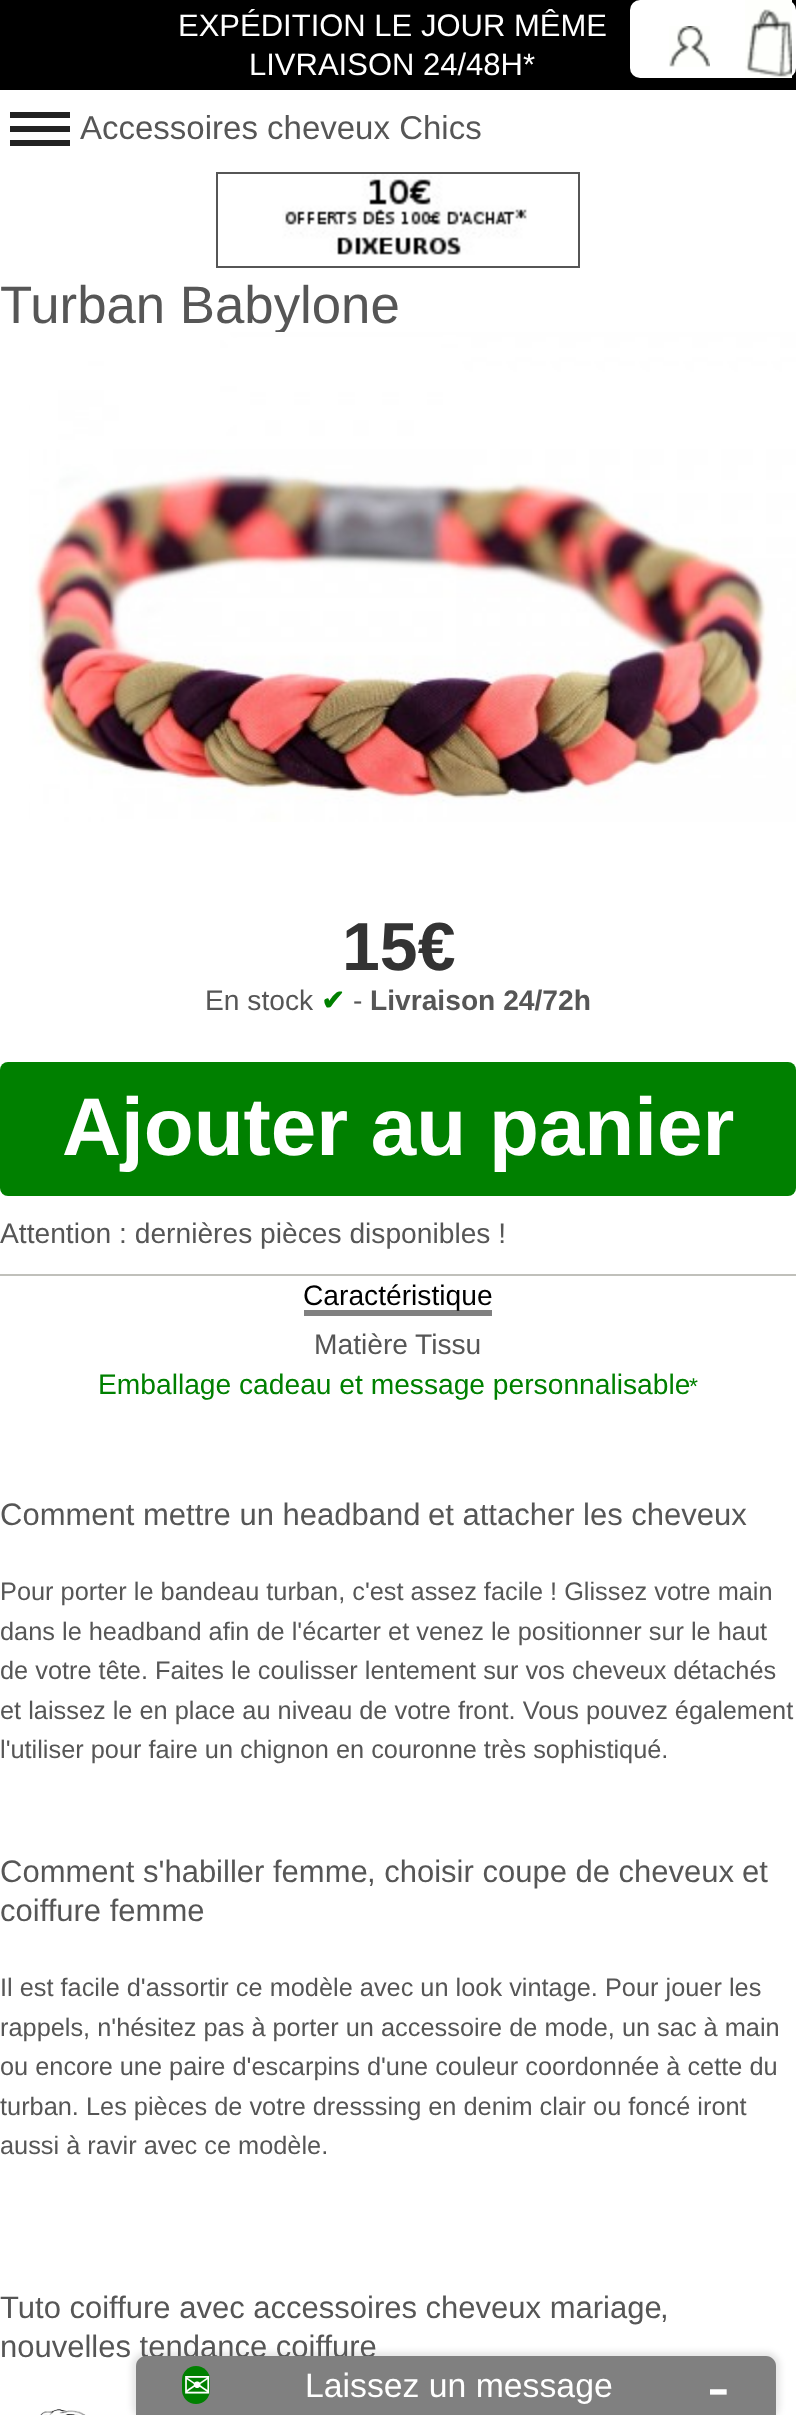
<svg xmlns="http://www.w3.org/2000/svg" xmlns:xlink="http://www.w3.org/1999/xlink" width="796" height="2415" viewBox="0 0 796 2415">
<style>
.cls-1{font:31px Liberation Sans;fill:#ffffff}
.cls-2{font:33px Liberation Sans;fill:#565656}
.cls-3{font:52.75px Liberation Sans;fill:#565656}
.cls-4{font:bold 68px Liberation Sans;fill:#333333}
.cls-5{font:28.2px Liberation Sans;fill:#565656}
.cls-6{font:bold 28.2px DejaVu Sans;fill:#008000}
.cls-7{font:bold 28.2px Liberation Sans;fill:#565656}
.cls-8{font:bold 81.75px Liberation Sans;fill:#ffffff}
.cls-9{font:28.2px Liberation Sans;fill:#000000}
.cls-10{font:28.2px Liberation Sans;fill:#008000}
.cls-11{font:23px Liberation Sans;fill:#008000}
.cls-12{font:31px Liberation Sans;fill:#565656}
.cls-13{font:25.35px Liberation Sans;fill:#565656}
.cls-14{font:33.75px DejaVu Sans;fill:#ffffff}
.cls-15{font:33.75px Liberation Sans;fill:#ffffff}
.cls-16{font:68px Liberation Sans;fill:#ffffff}
</style>
<rect width="100%" height="100%" fill="#ffffff"/>
<rect fill="#000000" x="0" y="0" width="796" height="90"/>
<rect fill="#ffffff" x="630" y="0" width="166" height="78" rx="10"/>
<image xlink:href="image0.png" x="669" y="26" width="41" height="41"/>
<image xlink:href="image1.png" x="745" y="0" width="47" height="78"/>
<rect fill="#222222" x="10" y="112" width="60" height="6"/>
<rect fill="#222222" x="10" y="126" width="60" height="6"/>
<rect fill="#222222" x="10" y="140" width="60" height="6"/>
<rect fill="none" stroke="#565656" stroke-width="2" x="217" y="173" width="362" height="94"/>
<image xlink:href="image2.png" x="282" y="174" width="245" height="81"/>
<rect fill="#008000" x="0" y="1062" width="796" height="134" rx="8"/>
<rect fill="#c0c0bb" x="0" y="1274" width="796" height="2"/>
<rect fill="#808080" x="304" y="1310" width="188" height="6"/>
<image xlink:href="image4.png" x="40" y="2409" width="46" height="6"/>
<rect fill="#000000" fill-opacity="0.1" filter="blur(3px)" x="132" y="2352" width="648" height="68" rx="14"/>
<text class="cls-1" x="178" y="36">EXPÉDITION LE JOUR MÊME</text>
<text class="cls-1" x="249" y="75">LIVRAISON 24/48H*</text>
<text class="cls-2" x="80" y="139">Accessoires cheveux Chics</text>
<text class="cls-3" x="0" y="323">Turban Babylone</text>
<image xlink:href="image3.png" x="29" y="332" width="767" height="490"/>
<text class="cls-4" x="342" y="970">15€</text>
<text class="cls-5" x="205" y="1010">En stock</text>
<text class="cls-6" x="321" y="1010">✔</text>
<text class="cls-5" x="353" y="1010">-</text>
<text class="cls-7" x="370" y="1010">Livraison 24/72h</text>
<text class="cls-8" x="62" y="1155">Ajouter au panier</text>
<text class="cls-5" x="0" y="1243">Attention : dernières pièces disponibles !</text>
<text class="cls-9" x="303" y="1305">Caractéristique</text>
<text class="cls-5" x="314" y="1354">Matière</text>
<text class="cls-5" x="415" y="1354">Tissu</text>
<text class="cls-10" x="98" y="1394">Emballage cadeau et message personnalisable</text>
<text class="cls-11" x="689" y="1394">*</text>
<text class="cls-12" x="0" y="1525">Comment mettre un headband</text>
<text class="cls-12" x="428" y="1525">et attacher les cheveux</text>
<text class="cls-13"><tspan x="0" y="1600">Pour porter le bandeau turban, c'est assez facile ! Glissez votre main</tspan><tspan x="0" y="1640">dans le headband afin de l'écarter et venez le positionner sur le haut</tspan><tspan x="0" y="1679">de votre tête. Faites le coulisser lentement sur vos cheveux détachés</tspan><tspan x="0" y="1719">et laissez le en place au niveau de votre front. Vous pouvez également</tspan><tspan x="0" y="1758">l'utiliser pour faire un chignon en couronne très sophistiqué.</tspan></text>
<text class="cls-12" x="0" y="1882">Comment s'habiller femme</text>
<text class="cls-12" x="367" y="1882">, choisir coupe de cheveux</text>
<text class="cls-12" x="742" y="1882">et</text>
<text class="cls-12" x="0" y="1921">coiffure femme</text>
<text class="cls-13"><tspan x="0" y="1996">Il est facile d'assortir ce modèle avec un look vintage. Pour jouer les</tspan><tspan x="0" y="2036">rappels, n'hésitez pas à porter un accessoire de mode, un sac à main</tspan><tspan x="0" y="2075">ou encore une paire d'escarpins d'une couleur coordonnée à cette du</tspan><tspan x="0" y="2115">turban. Les pièces de votre dresssing en denim clair ou foncé iront</tspan><tspan x="0" y="2154">aussi à ravir avec ce modèle.</tspan></text>
<text class="cls-12" x="0" y="2318">Tuto coiffure avec accessoires cheveux mariage</text>
<text class="cls-12" x="660" y="2318">,</text>
<text class="cls-12" x="0" y="2357">nouvelles tendance coiffure</text>
<path fill="#808080" d="M146 2356H766C771.5 2356 776 2360.5 776 2366V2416H136V2366C136 2360.5 140.5 2356 146 2356Z"/>
<rect fill="#008000" x="182" y="2366" width="28" height="38" rx="14"/>
<text class="cls-14" x="183" y="2397">✉</text>
<text class="cls-15" x="305" y="2397">Laissez un message</text>
<text class="cls-16" x="707" y="2410">-</text>
</svg>
